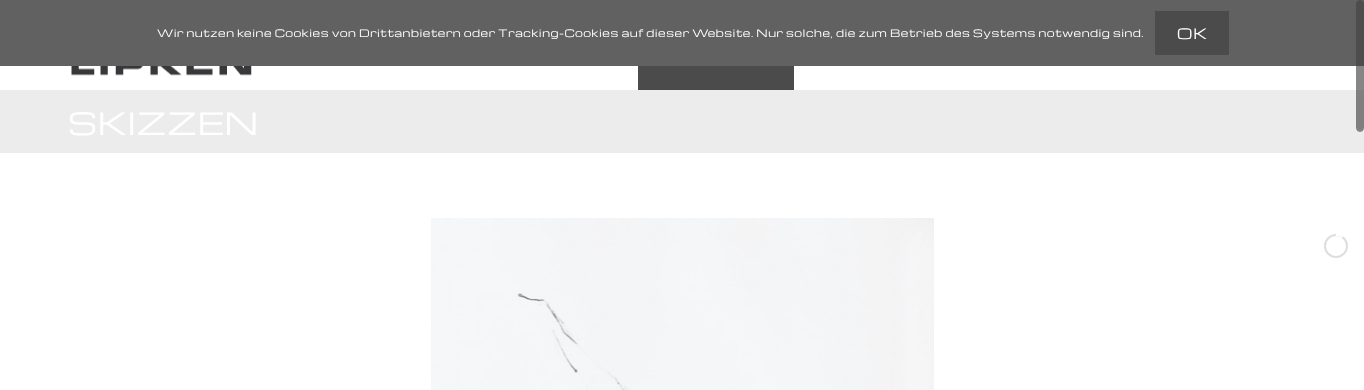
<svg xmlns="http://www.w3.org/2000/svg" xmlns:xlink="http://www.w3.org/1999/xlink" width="1364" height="390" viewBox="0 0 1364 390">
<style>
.cls-1{font:10px Michroma;letter-spacing:0.5px;fill:#ffffff}
.cls-2{font:14px Michroma;letter-spacing:1px;fill:#ffffff}
.cls-3{font:30px Michroma;letter-spacing:0.5px;fill:#ffffff}
</style>
<defs>
<clipPath id="clip1"><rect x="1336" y="234" width="12" height="24"/></clipPath>
<clipPath id="clip2"><path d="M1333.5 229L1343 236.5L1329 255.5L1319 248.5Z"/></clipPath>
</defs>
<rect width="100%" height="100%" fill="#ffffff"/>
<rect fill="#616161" x="0" y="0" width="1364" height="66"/>
<rect fill="#4a4b4a" x="1155" y="11" width="74" height="44"/>
<rect fill="#ececec" x="0" y="90" width="1364" height="63"/>
<rect fill="#424242" fill-opacity="0.64" x="1357" y="1" width="6" height="130" rx="3"/>
<rect fill="none" stroke="#424242" stroke-opacity="0.64" x="1356.5" y="0.5" width="7" height="131" rx="3.5"/>
<image xlink:href="image0.png" x="71" y="66" width="181" height="10"/>
<rect fill="#4a4b4a" x="638" y="66" width="156" height="24"/>
<image xlink:href="image1.png" x="431" y="218" width="503" height="172"/>
<circle fill="none" stroke="#dedede" stroke-width="2" cx="1336" cy="246" r="11"/>
<g clip-path="url(#clip1)">
<g clip-path="url(#clip2)">
<path fill="none" stroke="#ffffff" stroke-width="2" d="M1342.5 237C1354 245.5 1341 263.5 1329.5 255C1318 246.5 1331 228.5 1342.5 237Z"/>
</g>
</g>
<text class="cls-1" x="157" y="37">Wir nutzen keine Cookies von Drittanbietern oder Tracking-Cookies auf dieser Website. Nur solche, die zum Betrieb des Systems notwendig sind.</text>
<text class="cls-2" x="1177" y="39">OK</text>
<text class="cls-3" x="68" y="135">SKIZZEN</text>
</svg>
